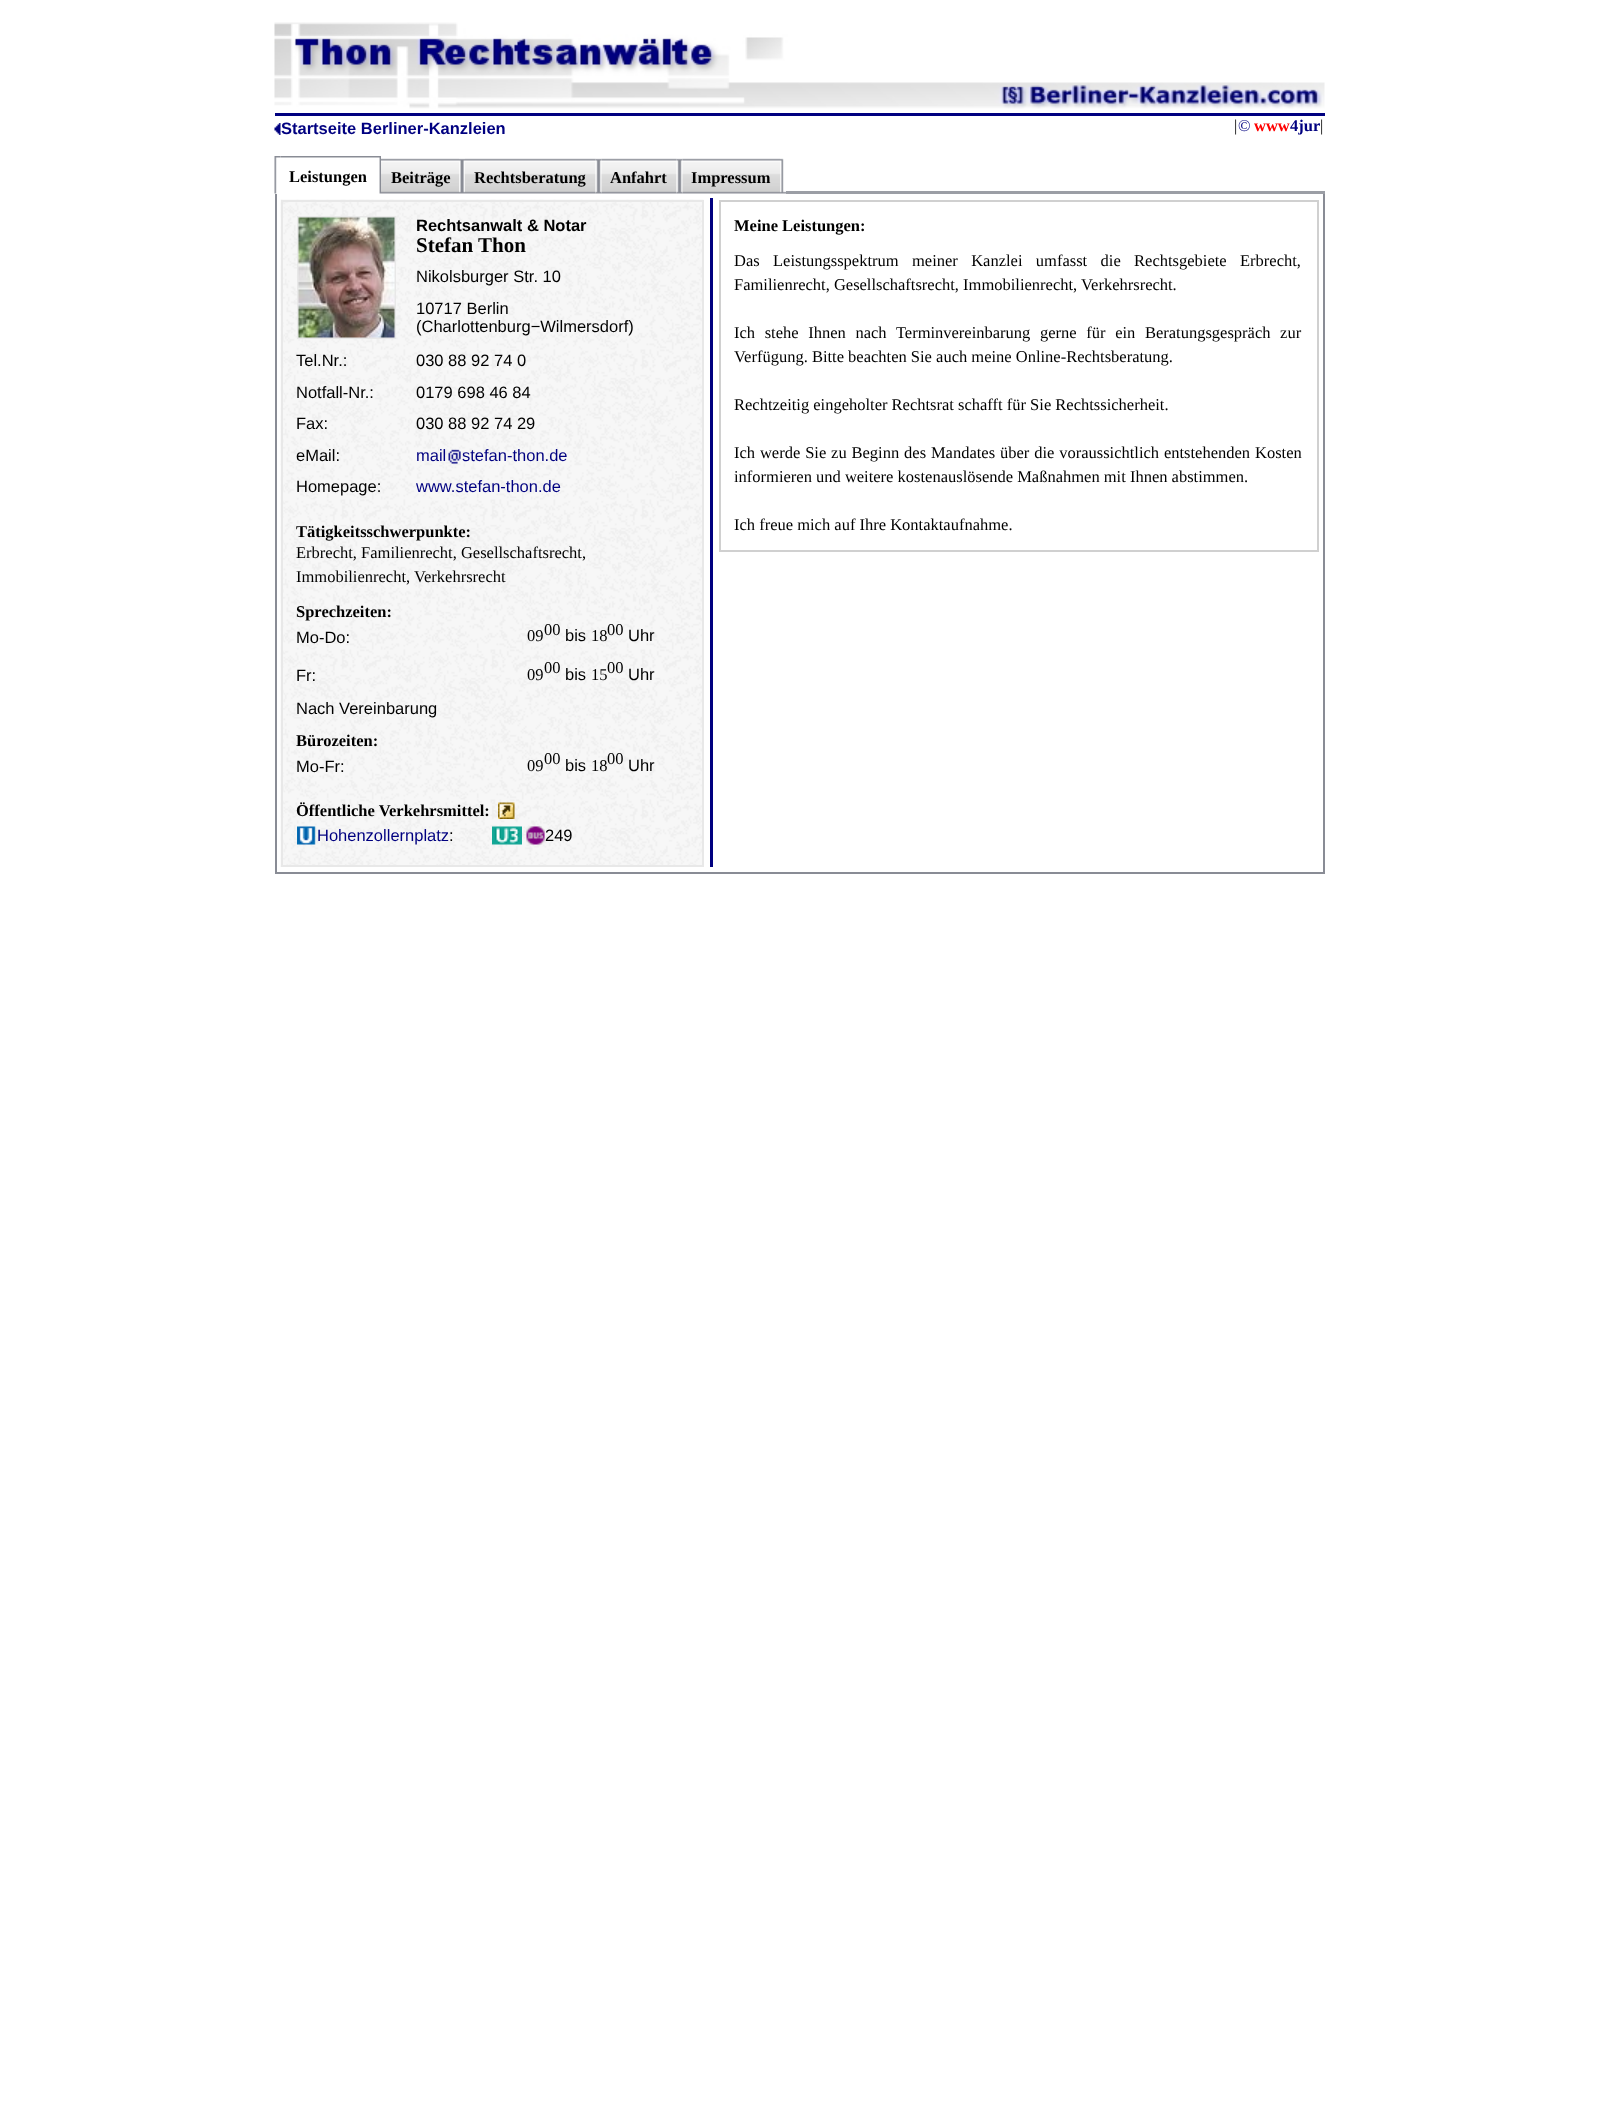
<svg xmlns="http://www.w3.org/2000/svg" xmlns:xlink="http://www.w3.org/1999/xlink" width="1597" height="2110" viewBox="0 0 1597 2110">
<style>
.cls-1{font:bold 16.5px Liberation Sans;fill:#000080}
.cls-2{font:16.5px Liberation Serif;fill:#000000}
.cls-3{font:16.5px Liberation Serif;fill:#000080}
.cls-4{font:bold 16.5px Liberation Serif;fill:#ff0000}
.cls-5{font:bold 16.5px Liberation Serif;fill:#000080}
.cls-6{font:bold 16.5px Liberation Serif;fill:#000000}
.cls-7{font:bold 16.5px Liberation Sans;fill:#000000}
.cls-8{font:bold 21px Liberation Serif;fill:#000000}
.cls-9{font:16.5px Liberation Sans;fill:#000000}
.cls-10{font:16.5px Liberation Sans;fill:#000080}
</style>
<rect width="100%" height="100%" fill="#ffffff"/>
<image xlink:href="image0.png" x="274" y="22" width="1051" height="87"/>
<rect fill="#000080" x="275" y="113" width="1050" height="3"/>
<image xlink:href="image1.png" x="274" y="123" width="7" height="12"/>
<image xlink:href="image2.png" x="274" y="156" width="7" height="38"/>
<image xlink:href="image3.png" x="280" y="156" width="95" height="2"/>
<image xlink:href="image4.png" x="375" y="156" width="6" height="38"/>
<image xlink:href="image5.png" x="381" y="158" width="78" height="36"/>
<image xlink:href="image6.png" x="459" y="158" width="6" height="36"/>
<image xlink:href="image7.png" x="465" y="158" width="131" height="36"/>
<image xlink:href="image8.png" x="595" y="158" width="7" height="36"/>
<image xlink:href="image9.png" x="601" y="158" width="76" height="36"/>
<image xlink:href="image8.png" x="676" y="158" width="7" height="36"/>
<image xlink:href="image10.png" x="682" y="158" width="98" height="36"/>
<image xlink:href="image11.png" x="780" y="158" width="6" height="36"/>
<rect fill="#9b9ea5" x="786" y="191" width="539" height="3"/>
<rect fill="#898c95" x="1323" y="194" width="2" height="679"/>
<rect fill="#898c95" x="275" y="872" width="1050" height="2"/>
<rect fill="#898c95" x="275" y="194" width="2" height="679"/>
<rect fill="#000080" x="710" y="198" width="3" height="669"/>
<image xlink:href="image12.png" x="280" y="199" width="424" height="668"/>
<rect fill="none" stroke="#e8e8e8" stroke-width="2" x="282" y="201" width="421" height="665"/>
<rect fill="none" stroke="#e8e8e8" stroke-width="2" x="298" y="217" width="97" height="121"/>
<image xlink:href="image13.png" x="298" y="217" width="97" height="121"/>
<image xlink:href="image14.png" x="448" y="449" width="13" height="15"/>
<image xlink:href="image15.png" x="498" y="802" width="17" height="17"/>
<image xlink:href="image16.png" x="297" y="826" width="19" height="19"/>
<image xlink:href="image17.png" x="492" y="826" width="30" height="19"/>
<image xlink:href="image18.png" x="526" y="826" width="19" height="19"/>
<rect fill="none" stroke="#d0d0d0" stroke-width="2" x="720" y="201" width="598" height="350"/>
<text class="cls-1" x="281" y="134">Startseite Berliner-Kanzleien</text>
<text class="cls-2" x="1234" y="131">|</text>
<text class="cls-3" x="1238" y="131">©</text>
<text class="cls-4" x="1254" y="131">www</text>
<text class="cls-5" x="1290" y="131">4jur</text>
<text class="cls-2" x="1320" y="131">|</text>
<text class="cls-6" x="289" y="182">Leistungen</text>
<text class="cls-6" x="391" y="183">Beiträge</text>
<text class="cls-6" x="474" y="183">Rechtsberatung</text>
<text class="cls-6" x="610" y="183">Anfahrt</text>
<text class="cls-6" x="691" y="183">Impressum</text>
<text class="cls-7" x="416" y="231">Rechtsanwalt &amp; Notar</text>
<text class="cls-8" x="416" y="252">Stefan Thon</text>
<text class="cls-9"><tspan x="416" y="282">Nikolsburger Str. 10</tspan><tspan x="416" y="314">10717 Berlin</tspan><tspan x="416" y="332">(Charlottenburg−Wilmersdorf)</tspan></text>
<text class="cls-9" x="296" y="366">Tel.Nr.:</text>
<text class="cls-9" x="416" y="366">030 88 92 74 0</text>
<text class="cls-9" x="296" y="398">Notfall-Nr.:</text>
<text class="cls-9" x="416" y="398">0179 698 46 84</text>
<text class="cls-9" x="296" y="429">Fax:</text>
<text class="cls-9" x="416" y="429">030 88 92 74 29</text>
<text class="cls-9" x="296" y="461">eMail:</text>
<text class="cls-10" x="416" y="461">mail</text>
<text class="cls-10" x="462" y="461">stefan-thon.de</text>
<text class="cls-9" x="296" y="492">Homepage:</text>
<text class="cls-10" x="416" y="492">www.stefan-thon.de</text>
<text class="cls-6" x="296" y="537">Tätigkeitsschwerpunkte:</text>
<text class="cls-2"><tspan x="296" y="558">Erbrecht, Familienrecht, Gesellschaftsrecht,</tspan><tspan x="296" y="582">Immobilienrecht, Verkehrsrecht</tspan></text>
<text class="cls-6" x="296" y="617">Sprechzeiten:</text>
<text class="cls-9" x="296" y="643">Mo-Do:</text>
<text class="cls-2" x="527" y="641">09</text>
<text class="cls-2" x="544" y="635">00</text>
<text class="cls-9" x="565" y="641">bis</text>
<text class="cls-2" x="591" y="641">18</text>
<text class="cls-2" x="607" y="635">00</text>
<text class="cls-9" x="628" y="641">Uhr</text>
<text class="cls-9" x="296" y="681">Fr:</text>
<text class="cls-2" x="527" y="680">09</text>
<text class="cls-2" x="544" y="673">00</text>
<text class="cls-9" x="565" y="680">bis</text>
<text class="cls-2" x="591" y="680">15</text>
<text class="cls-2" x="607" y="673">00</text>
<text class="cls-9" x="628" y="680">Uhr</text>
<text class="cls-9" x="296" y="714">Nach Vereinbarung</text>
<text class="cls-6" x="296" y="746">Bürozeiten:</text>
<text class="cls-9" x="296" y="772">Mo-Fr:</text>
<text class="cls-2" x="527" y="771">09</text>
<text class="cls-2" x="544" y="764">00</text>
<text class="cls-9" x="565" y="771">bis</text>
<text class="cls-2" x="591" y="771">18</text>
<text class="cls-2" x="607" y="764">00</text>
<text class="cls-9" x="628" y="771">Uhr</text>
<text class="cls-6" x="296" y="816">Öffentliche Verkehrsmittel:</text>
<text class="cls-10" x="317" y="841">Hohenzollernplatz</text>
<text class="cls-9" x="449" y="841">:</text>
<text class="cls-9" x="545" y="841">249</text>
<text class="cls-6" x="734" y="231">Meine Leistungen:</text>
<text class="cls-2"><tspan x="734" y="266" word-spacing="9.25">Das Leistungsspektrum meiner Kanzlei umfasst die Rechtsgebiete Erbrecht,</tspan><tspan x="734" y="290">Familienrecht, Gesellschaftsrecht, Immobilienrecht, Verkehrsrecht.</tspan></text>
<text class="cls-2" x="734" y="338" word-spacing="5.5">Ich stehe Ihnen nach Terminvereinbarung</text>
<text class="cls-2" x="1040" y="338" word-spacing="5.5">gerne für ein Beratungsgespräch zur</text>
<text class="cls-2" x="734" y="362">Verfügung. Bitte beachten Sie auch meine Online-Rechtsberatung.</text>
<text class="cls-2" x="734" y="410">Rechtzeitig eingeholter Rechtsrat schafft für Sie Rechtssicherheit.</text>
<text class="cls-2"><tspan x="734" y="458" word-spacing="0.75">Ich werde Sie zu Beginn des Mandates über die voraussichtlich entstehenden Kosten</tspan><tspan x="734" y="482">informieren und weitere kostenauslösende Maßnahmen mit Ihnen abstimmen.</tspan></text>
<text class="cls-2" x="734" y="530">Ich freue mich auf Ihre Kontaktaufnahme.</text>
</svg>
